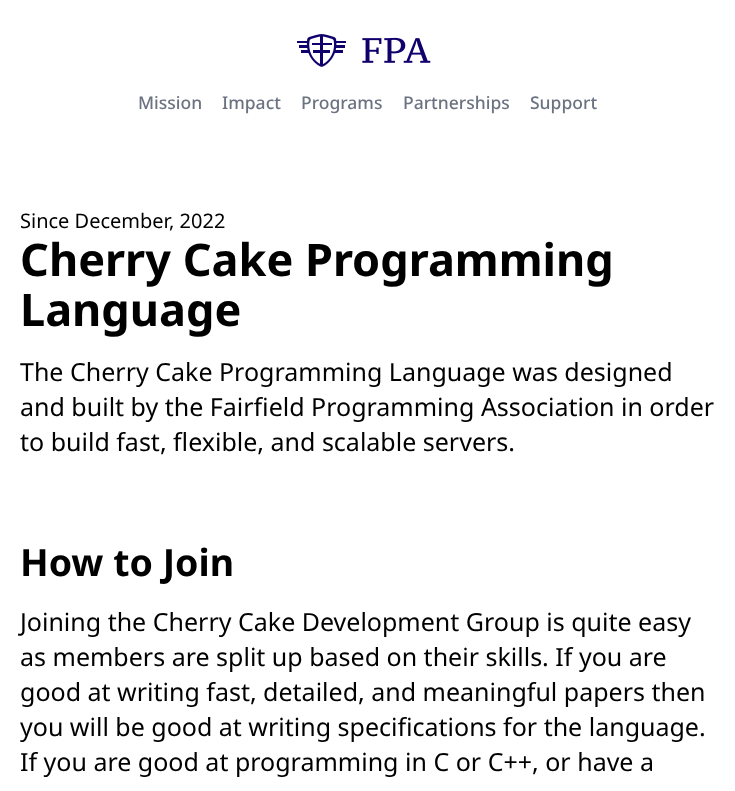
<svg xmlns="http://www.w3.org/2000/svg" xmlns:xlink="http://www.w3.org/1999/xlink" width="735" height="791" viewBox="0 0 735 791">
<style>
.cls-1{font:500 17.5px Noto Sans;fill:#6b7280}
.cls-2{font:20px Noto Sans;fill:#000000}
.cls-3{font:bold 45px Noto Sans;fill:#000000}
.cls-4{font:25px Noto Sans;fill:#000000}
.cls-5{font:bold 37.5px Noto Sans;fill:#000000}
</style>
<rect width="100%" height="100%" fill="#ffffff"/>
<image xlink:href="image0.png" x="297" y="34" width="134" height="33"/>
<text class="cls-1" x="138" y="109">Mission</text>
<text class="cls-1" x="222" y="109">Impact</text>
<text class="cls-1" x="301" y="109">Programs</text>
<text class="cls-1" x="403" y="109">Partnerships</text>
<text class="cls-1" x="530" y="109">Support</text>
<text class="cls-2" x="20" y="228">Since December</text>
<text class="cls-2" x="169" y="228">, 2022</text>
<text class="cls-3"><tspan x="20" y="276">Cherry Cake Programming</tspan><tspan x="20" y="326">Language</tspan></text>
<text class="cls-4"><tspan x="20" y="381">The Cherry Cake Programming Language was designed</tspan><tspan x="20" y="416">and built by the Fairfield Programming Association in order</tspan><tspan x="20" y="451">to build fast, flexible, and scalable servers.</tspan></text>
<text class="cls-5" x="20" y="576">How to Join</text>
<text class="cls-4"><tspan x="20" y="631">Joining the Cherry Cake Development Group is quite easy</tspan><tspan x="20" y="666">as members are split up based on their skills. If you are</tspan><tspan x="20" y="701">good at writing fast, detailed, and meaningful papers then</tspan><tspan x="20" y="736">you will be good at writing specifications for the language.</tspan><tspan x="20" y="771">If you are good at programming in C or C++, or have a</tspan></text>
</svg>
